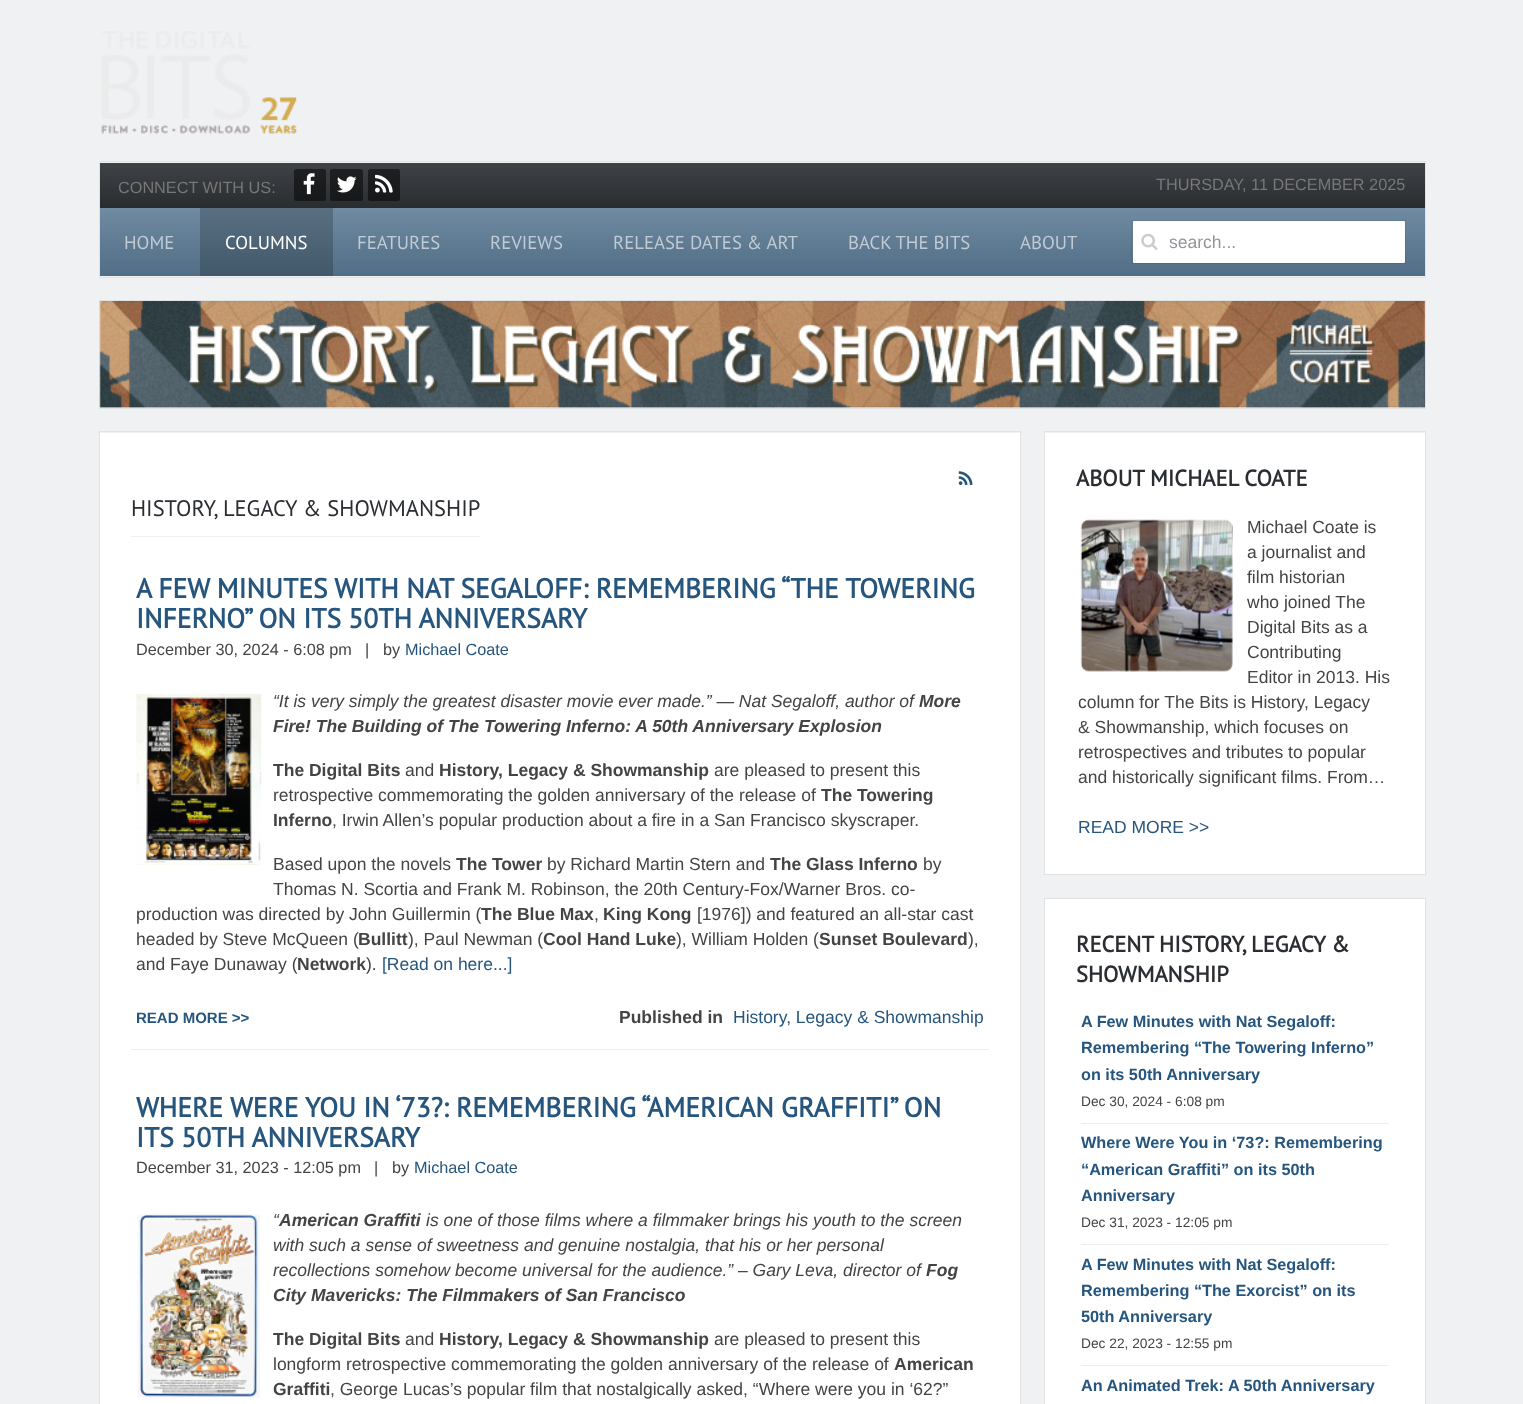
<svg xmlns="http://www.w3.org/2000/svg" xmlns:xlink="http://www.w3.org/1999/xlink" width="1523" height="1404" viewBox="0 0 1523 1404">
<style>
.cls-1{font:16.25px Liberation Sans;fill:#777777}
.cls-2{font:18.75px PT Sans;fill:#c0cbd4}
.cls-3{font:18.75px PT Sans;fill:#ffffff}
.cls-4{font:17.5px Liberation Sans;fill:#92969a}
.cls-5{font:22.5px PT Sans;fill:#2a2d31}
.cls-6{font:bold 27.5px PT Sans;fill:#26557d}
.cls-7{font:16.25px Liberation Sans;fill:#444444}
.cls-8{font:16.25px Liberation Sans;fill:#26557d}
.cls-9{font:italic 17.5px Liberation Sans;fill:#444444}
.cls-10{font:italic bold 17.5px Liberation Sans;fill:#444444}
.cls-11{font:bold 17.5px Liberation Sans;fill:#444444}
.cls-12{font:17.5px Liberation Sans;fill:#444444}
.cls-13{font:17.5px Liberation Sans;fill:#26557d}
.cls-14{font:bold 15px Liberation Sans;fill:#26557d}
.cls-15{font:bold 22.5px PT Sans;fill:#2a2d31}
.cls-16{font:bold 16.25px Liberation Sans;fill:#26557d}
.cls-17{font:13.75px Liberation Sans;fill:#444444}
</style>
<defs>
<linearGradient id="g1" gradientUnits="userSpaceOnUse" x1="763" y1="162" x2="763" y2="208"><stop offset="0" stop-color="#3f4246"/><stop offset="1" stop-color="#2a2d30"/></linearGradient>
<linearGradient id="g2" gradientUnits="userSpaceOnUse" x1="763" y1="207" x2="763" y2="276"><stop offset="0" stop-color="#708ba2"/><stop offset="1" stop-color="#516e86"/></linearGradient>
<linearGradient id="g3" gradientUnits="userSpaceOnUse" x1="763" y1="207" x2="763" y2="276"><stop offset="0" stop-color="#5a6f82"/><stop offset="1" stop-color="#41586b"/></linearGradient>
</defs>
<rect width="100%" height="100%" fill="#f0f1f3"/>
<image xlink:href="image0.png" x="101" y="31" width="196" height="103"/>
<rect fill="none" stroke="#000000" stroke-opacity="0.06" x="99.5" y="161.5" width="1326" height="116"/>
<rect fill="url(#g1)" x="100" y="163" width="1325" height="45"/>
<rect fill="#000000" fill-opacity="0.5" x="294" y="169" width="32" height="32" rx="2.5"/>
<image xlink:href="image1.png" x="303" y="173" width="12" height="22"/>
<rect fill="#000000" fill-opacity="0.5" x="330" y="169" width="33" height="32" rx="2.5"/>
<image xlink:href="image2.png" x="337" y="176" width="20" height="17"/>
<rect fill="#000000" fill-opacity="0.5" x="368" y="169" width="32" height="32" rx="2.5"/>
<image xlink:href="image3.png" x="375" y="174" width="18" height="19"/>
<rect fill="url(#g2)" x="100" y="208" width="1325" height="68"/>
<rect fill="url(#g3)" x="200" y="208" width="133" height="68"/>
<rect fill="#ffffff" x="1133" y="221" width="272" height="42" rx="1"/>
<rect fill="none" stroke="#000000" stroke-opacity="0.06" x="1131.5" y="220.5" width="274" height="43"/>
<image xlink:href="image4.png" x="1141" y="233" width="17" height="17"/>
<rect fill="none" stroke="#000000" stroke-opacity="0.06" x="99.5" y="300.5" width="1326" height="108"/>
<rect fill="#ffffff" x="100" y="301" width="1325" height="107"/>
<image xlink:href="image5.png" x="99" y="301" width="1326" height="107"/>
<rect fill="none" stroke="#000000" stroke-opacity="0.06" x="99.5" y="431.5" width="921" height="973"/>
<rect fill="#ffffff" x="100" y="433" width="920" height="971"/>
<image xlink:href="image6.png" x="958" y="471" width="15" height="14"/>
<rect fill="#f0f0f0" x="131" y="536" width="349" height="1"/>
<rect fill="#ededed" x="131" y="1049" width="858" height="1"/>
<image xlink:href="image7.png" x="136" y="693" width="126" height="172"/>
<image xlink:href="image8.png" x="137" y="1214" width="123" height="184"/>
<rect fill="none" stroke="#000000" stroke-opacity="0.06" x="1044.5" y="431.5" width="381" height="443"/>
<rect fill="#ffffff" x="1045" y="433" width="380" height="441"/>
<image xlink:href="image9.png" x="1080" y="519" width="153" height="153"/>
<rect fill="none" stroke="#000000" stroke-opacity="0.06" x="1044.5" y="898.5" width="381" height="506"/>
<rect fill="#ffffff" x="1045" y="899" width="380" height="505"/>
<rect fill="#ededed" x="1081" y="1123" width="308" height="1"/>
<rect fill="#ededed" x="1081" y="1244" width="308" height="1"/>
<rect fill="#ededed" x="1081" y="1365" width="308" height="1"/>
<text class="cls-1" x="118" y="193">CONNECT WITH US:</text>
<text class="cls-1" x="1156" y="190">THURSDAY, 11 DECEMBER 2025</text>
<text class="cls-2" x="124" y="249">HOME</text>
<text class="cls-3" x="225" y="249">COLUMNS</text>
<text class="cls-2" x="357" y="249">FEATURES</text>
<text class="cls-2" x="490" y="249">REVIEWS</text>
<text class="cls-2" x="613" y="249">RELEASE DATES &amp; ART</text>
<text class="cls-2" x="848" y="249">BACK THE BITS</text>
<text class="cls-2" x="1020" y="249">ABOUT</text>
<text class="cls-4" x="1169" y="248">search...</text>
<text class="cls-5" x="131" y="516">HISTORY, LEGACY &amp; SHOWMANSHIP</text>
<text class="cls-6"><tspan x="136" y="598">A FEW MINUTES WITH NAT SEGALOFF: REMEMBERING “THE TOWERING</tspan><tspan x="136" y="628">INFERNO” ON ITS 50TH ANNIVERSARY</tspan></text>
<text class="cls-7" x="136" y="655">December 30, 2024 - 6:08 pm</text>
<text class="cls-7" x="365" y="655">|</text>
<text class="cls-7" x="383" y="655">by</text>
<text class="cls-8" x="405" y="655">Michael Coate</text>
<text class="cls-9" x="273" y="707">“It is very simply the greatest disaster movie ever made.” — Nat Segaloff, author of</text>
<text class="cls-10" x="919" y="707">More</text>
<text class="cls-10" x="273" y="732">Fire! The Building of The Towering Inferno: A 50th Anniversary Explosion</text>
<text class="cls-11" x="273" y="776">The Digital Bits</text>
<text class="cls-12" x="405" y="776">and</text>
<text class="cls-11" x="439" y="776">History, Legacy &amp; Showmanship</text>
<text class="cls-12" x="714" y="776">are pleased to present this</text>
<text class="cls-12" x="273" y="801">retrospective commemorating the golden anniversary of the release of</text>
<text class="cls-11" x="821" y="801">The Towering</text>
<text class="cls-11" x="273" y="826">Inferno</text>
<text class="cls-12" x="332" y="826">, Irwin Allen’s popular production about a fire in a San Francisco skyscraper.</text>
<text class="cls-12" x="273" y="870">Based upon the novels</text>
<text class="cls-11" x="456" y="870">The Tower</text>
<text class="cls-12" x="547" y="870">by Richard Martin Stern and</text>
<text class="cls-11" x="770" y="870">The Glass Inferno</text>
<text class="cls-12" x="923" y="870">by</text>
<text class="cls-12" x="273" y="895">Thomas N. Scortia and Frank M. Robinson, the 20th Century-Fox/Warner Bros. co-</text>
<text class="cls-12" x="136" y="920">production was directed by John Guillermin (</text>
<text class="cls-11" x="481" y="920">The Blue Max</text>
<text class="cls-12" x="594" y="920">,</text>
<text class="cls-11" x="603" y="920">King Kong</text>
<text class="cls-12" x="697" y="920">[1976]) and featured an all-star cast</text>
<text class="cls-12" x="136" y="945">headed by Steve McQueen (</text>
<text class="cls-11" x="358" y="945">Bullitt</text>
<text class="cls-12" x="408" y="945">), Paul Newman (</text>
<text class="cls-11" x="543" y="945">Cool Hand Luke</text>
<text class="cls-12" x="676" y="945">), William Holden (</text>
<text class="cls-11" x="819" y="945">Sunset Boulevard</text>
<text class="cls-12" x="968" y="945">),</text>
<text class="cls-12" x="136" y="970">and Faye Dunaway (</text>
<text class="cls-11" x="297" y="970">Network</text>
<text class="cls-12" x="366" y="970">).</text>
<text class="cls-13" x="382" y="970">[Read on here...]</text>
<text class="cls-14" x="136" y="1023">READ MORE &gt;&gt;</text>
<text class="cls-11" x="619" y="1023">Published in</text>
<text class="cls-13" x="733" y="1023">History, Legacy &amp; Showmanship</text>
<text class="cls-6"><tspan x="136" y="1117">WHERE WERE YOU IN ‘73?: REMEMBERING “AMERICAN GRAFFITI” ON</tspan><tspan x="136" y="1147">ITS 50TH ANNIVERSARY</tspan></text>
<text class="cls-7" x="136" y="1173">December 31, 2023 - 12:05 pm</text>
<text class="cls-7" x="374" y="1173">|</text>
<text class="cls-7" x="392" y="1173">by</text>
<text class="cls-8" x="414" y="1173">Michael Coate</text>
<text class="cls-9" x="273" y="1226">“</text>
<text class="cls-10" x="279" y="1226">American Graffiti</text>
<text class="cls-9" x="426" y="1226">is one of those films where a filmmaker brings his youth to the screen</text>
<text class="cls-9"><tspan x="273" y="1251">with such a sense of sweetness and genuine nostalgia, that his or her personal</tspan><tspan x="273" y="1276">recollections somehow become universal for the audience.” – Gary Leva, director of</tspan></text>
<text class="cls-10" x="926" y="1276">Fog</text>
<text class="cls-10" x="273" y="1301">City Mavericks: The Filmmakers of San Francisco</text>
<text class="cls-11" x="273" y="1345">The Digital Bits</text>
<text class="cls-12" x="405" y="1345">and</text>
<text class="cls-11" x="439" y="1345">History, Legacy &amp; Showmanship</text>
<text class="cls-12" x="714" y="1345">are pleased to present this</text>
<text class="cls-12" x="273" y="1370">longform retrospective commemorating the golden anniversary of the release of</text>
<text class="cls-11" x="894" y="1370">American</text>
<text class="cls-11" x="273" y="1395">Graffiti</text>
<text class="cls-12" x="330" y="1395">, George Lucas’s popular film that nostalgically asked, “Where were you in ‘62?”</text>
<text class="cls-15" x="1076" y="486">ABOUT MICHAEL COATE</text>
<text class="cls-12"><tspan x="1247" y="533">Michael Coate is</tspan><tspan x="1247" y="558">a journalist and</tspan><tspan x="1247" y="583">film historian</tspan><tspan x="1247" y="608">who joined The</tspan><tspan x="1247" y="633">Digital Bits as a</tspan><tspan x="1247" y="658">Contributing</tspan><tspan x="1247" y="683">Editor in 2013. His</tspan></text>
<text class="cls-12"><tspan x="1078" y="708">column for The Bits is History, Legacy</tspan><tspan x="1078" y="733">&amp; Showmanship, which focuses on</tspan><tspan x="1078" y="758">retrospectives and tributes to popular</tspan><tspan x="1078" y="783">and historically significant films. From…</tspan></text>
<text class="cls-13" x="1078" y="833">READ MORE &gt;&gt;</text>
<text class="cls-15"><tspan x="1076" y="952">RECENT HISTORY, LEGACY &amp;</tspan><tspan x="1076" y="982">SHOWMANSHIP</tspan></text>
<text class="cls-16"><tspan x="1081" y="1027">A Few Minutes with Nat Segaloff:</tspan><tspan x="1081" y="1053">Remembering “The Towering Inferno”</tspan><tspan x="1081" y="1080">on its 50th Anniversary</tspan></text>
<text class="cls-17" x="1081" y="1106">Dec 30, 2024 - 6:08 pm</text>
<text class="cls-16"><tspan x="1081" y="1148">Where Were You in ‘73?: Remembering</tspan><tspan x="1081" y="1175">“American Graffiti” on its 50th</tspan><tspan x="1081" y="1201">Anniversary</tspan></text>
<text class="cls-17" x="1081" y="1227">Dec 31, 2023 - 12:05 pm</text>
<text class="cls-16"><tspan x="1081" y="1270">A Few Minutes with Nat Segaloff:</tspan><tspan x="1081" y="1296">Remembering “The Exorcist” on its</tspan><tspan x="1081" y="1322">50th Anniversary</tspan></text>
<text class="cls-17" x="1081" y="1348">Dec 22, 2023 - 12:55 pm</text>
<text class="cls-16" x="1081" y="1391">An Animated Trek: A 50th Anniversary</text>
</svg>
